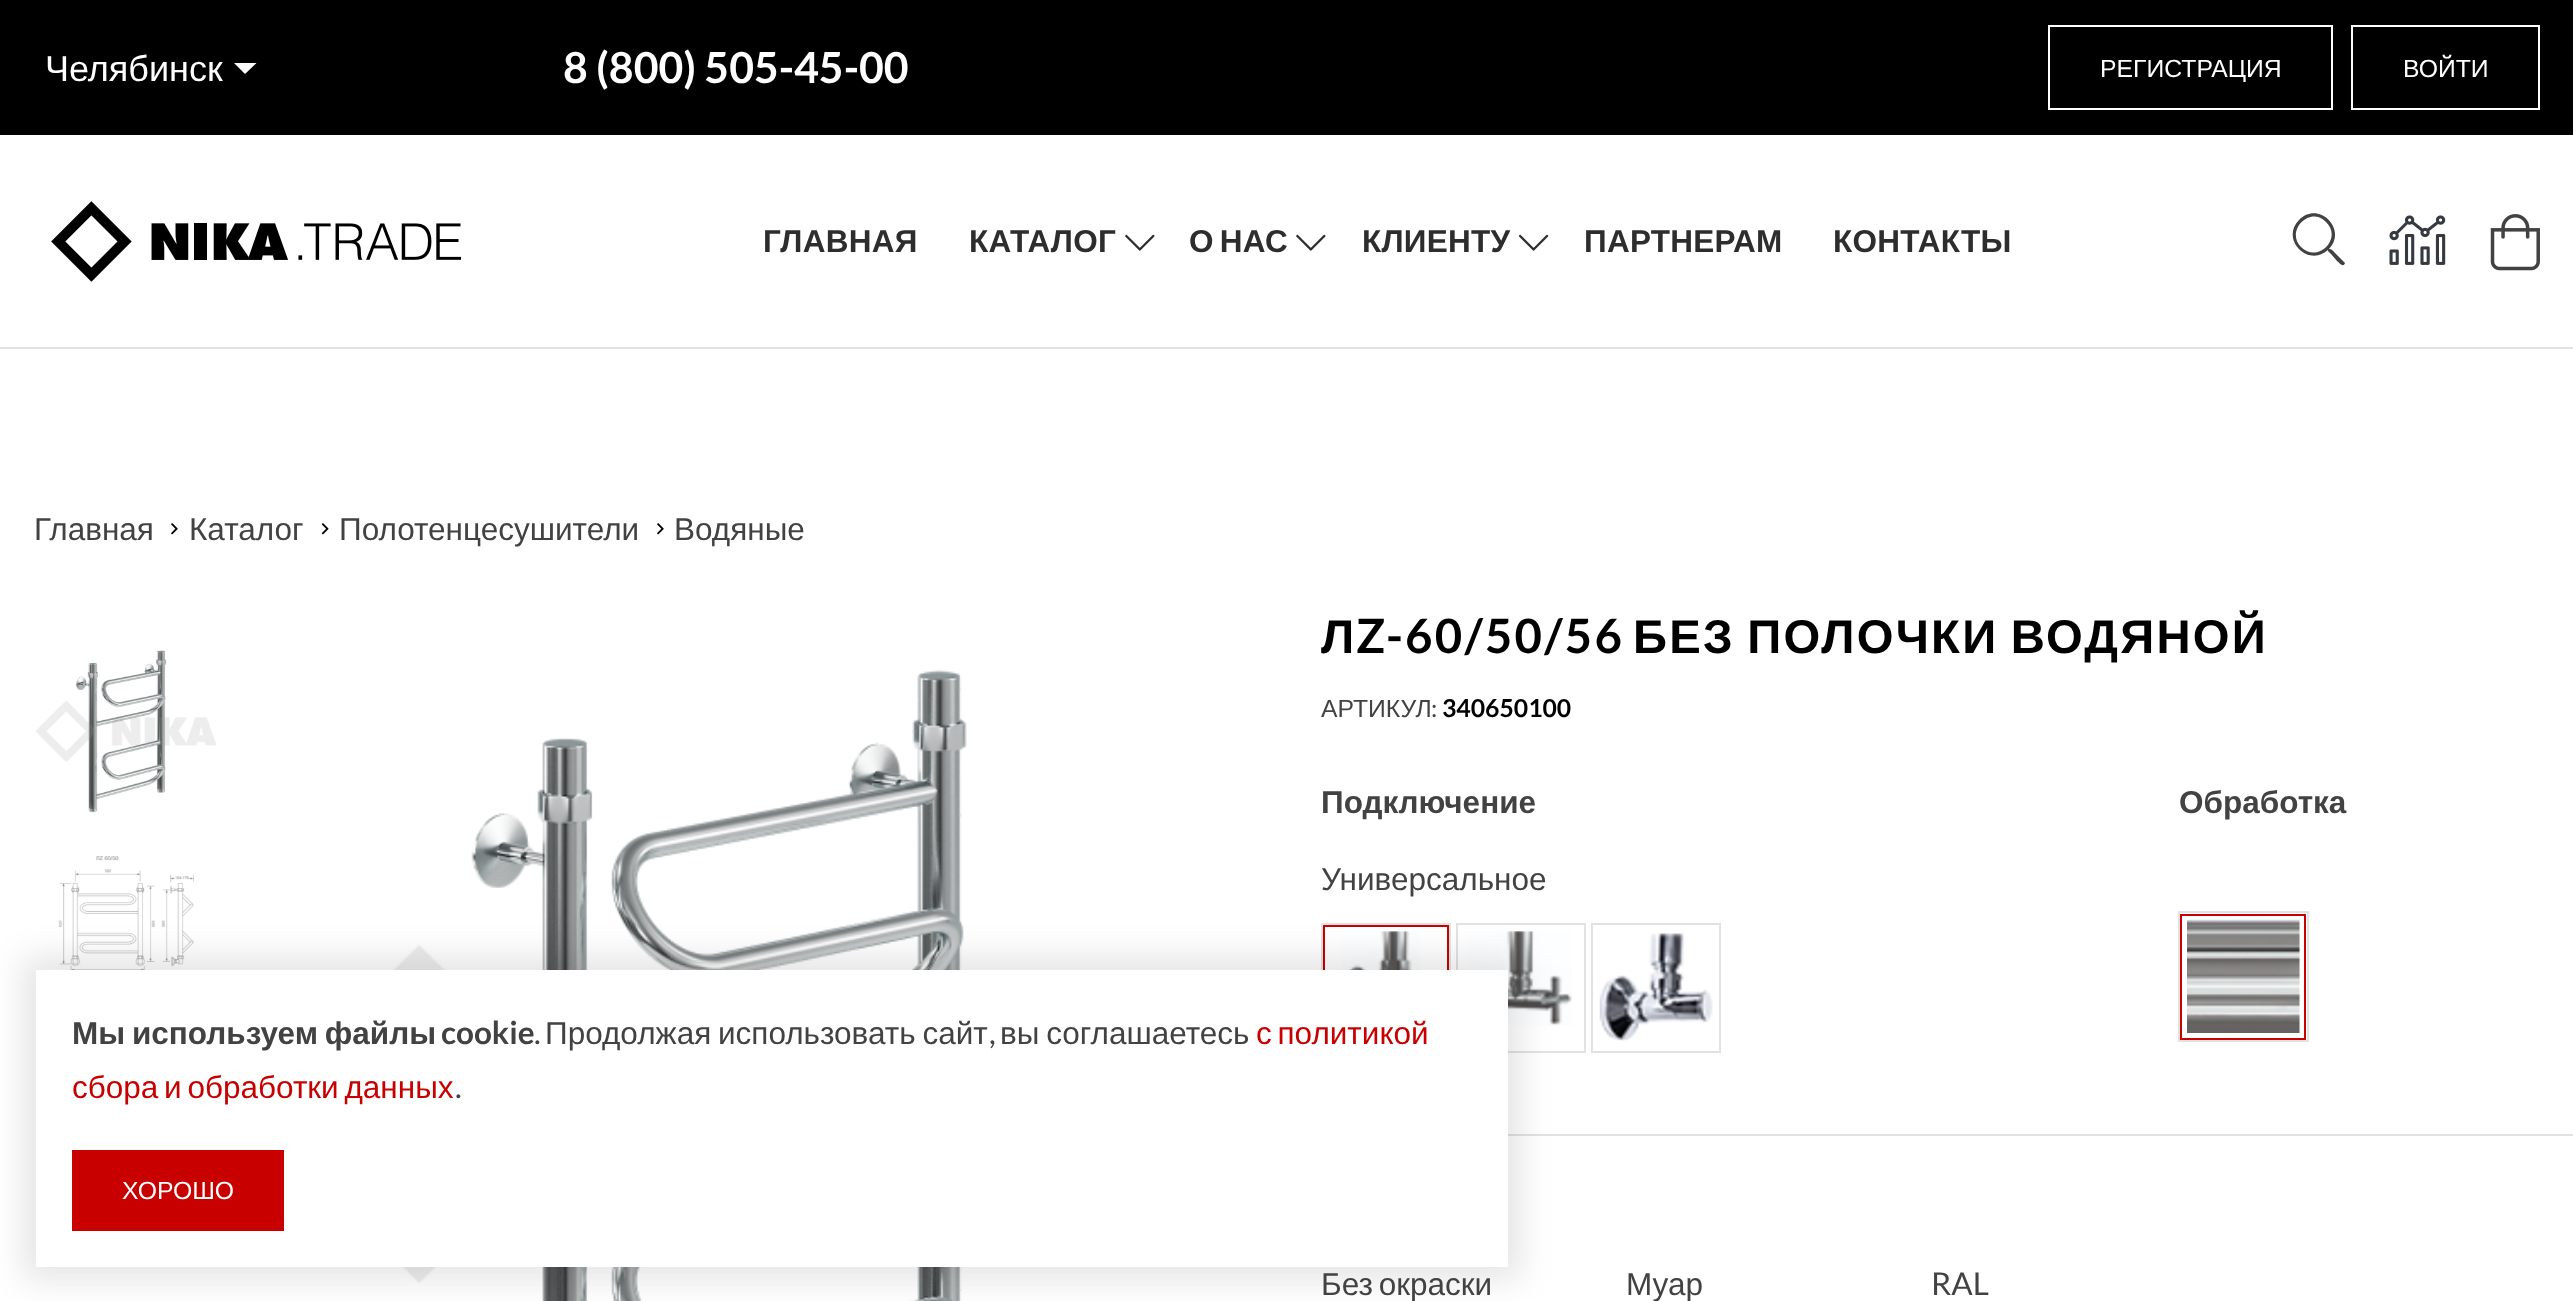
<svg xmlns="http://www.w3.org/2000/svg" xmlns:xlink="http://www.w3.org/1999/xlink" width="2573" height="1301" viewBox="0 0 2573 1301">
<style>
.cls-1{font:36px Liberation Sans;fill:#ffffff}
.cls-2{font:bold 42.75px Lato;fill:#ffffff}
.cls-3{font:24.75px Liberation Sans;fill:#ffffff}
.cls-4{font:bold 31.5px Liberation Sans;letter-spacing:0.25px;fill:#2d2d2d}
.cls-5{font:31.5px Liberation Sans;fill:#424242}
.cls-6{font:bold 47.25px Liberation Sans;letter-spacing:2.25px;fill:#000000}
.cls-7{font:bold 47.25px Lato;letter-spacing:2.25px;fill:#000000}
.cls-8{font:24.75px Liberation Sans;fill:#424242}
.cls-9{font:24.75px Lato;fill:#424242}
.cls-10{font:bold 24.75px Lato;fill:#000000}
.cls-11{font:bold 31.5px Liberation Sans;fill:#424242}
.cls-12{font:31.5px Lato;fill:#424242}
.cls-13{font:bold 31.5px Lato;fill:#424242}
.cls-14{font:31.5px Liberation Sans;fill:#c80000}
</style>
<defs>
<clipPath id="clip1"><rect x="1321" y="599" width="1219" height="72"/></clipPath>
</defs>
<rect width="100%" height="100%" fill="#ffffff"/>
<rect fill="#000000" x="0" y="0" width="2573" height="135"/>
<path fill="#ffffff" d="M234 63H256.5L245 74Z"/>
<rect fill="none" stroke="#ffffff" stroke-width="2" x="2049" y="26" width="283" height="83"/>
<rect fill="none" stroke="#ffffff" stroke-width="2" x="2352" y="26" width="187" height="83"/>
<rect fill="#e2e2e2" x="0" y="347" width="2573" height="2"/>
<image xlink:href="image0.png" x="51" y="201" width="410" height="81"/>
<image xlink:href="image1.png" x="1125" y="234" width="30" height="17"/>
<image xlink:href="image1.png" x="1296" y="234" width="30" height="17"/>
<image xlink:href="image2.png" x="1518" y="234" width="31" height="17"/>
<path fill="#424242" d="M2344 262L2345 263C2343 269 2338 261 2337 261L2331 254C2329 252 2328 252 2328 250C2308 268 2280 239 2299 220C2318 200 2348 229 2329 249C2332 249 2333 251 2335 253ZM2301 247C2318 264 2343 238 2326 222C2310 205 2285 231 2301 247Z"/>
<image xlink:href="image3.png" x="2389" y="215" width="57" height="50"/>
<image xlink:href="image4.png" x="2490" y="214" width="50" height="57"/>
<image xlink:href="image5.png" x="171" y="523" width="7" height="12"/>
<image xlink:href="image6.png" x="321" y="523" width="8" height="12"/>
<image xlink:href="image5.png" x="657" y="523" width="7" height="12"/>
<image xlink:href="image7.png" x="35" y="650" width="182" height="163"/>
<image xlink:href="image8.png" x="58" y="856" width="136" height="114"/>
<image xlink:href="image9.png" x="250" y="669" width="994" height="632"/>
<rect fill="none" stroke="#e2e2e2" stroke-width="2" x="1322" y="924" width="128" height="128"/>
<image xlink:href="image10.png" x="1342" y="931" width="78" height="39"/>
<rect fill="none" stroke="#c80000" stroke-width="2" x="1324" y="926" width="124" height="124"/>
<rect fill="none" stroke="#e2e2e2" stroke-width="2" x="1457" y="924" width="128" height="128"/>
<image xlink:href="image11.png" x="1466" y="931" width="106" height="95"/>
<rect fill="none" stroke="#e2e2e2" stroke-width="2" x="1592" y="924" width="128" height="128"/>
<image xlink:href="image12.png" x="1599" y="933" width="114" height="108"/>
<rect fill="none" stroke="#e2e2e2" stroke-width="2" x="2179" y="912" width="129" height="129"/>
<image xlink:href="image13.png" x="2187" y="919" width="114" height="114"/>
<rect fill="none" stroke="#c80000" stroke-width="2" x="2181" y="915" width="124" height="124"/>
<rect fill="#e2e2e2" x="1508" y="1134" width="1065" height="2"/>
<rect fill="#000000" fill-opacity="0.1" filter="blur(16px)" x="23" y="956" width="1498" height="324"/>
<rect fill="#ffffff" x="36" y="970" width="1472" height="297"/>
<rect fill="#c80000" x="72" y="1150" width="212" height="81"/>
<text class="cls-1" x="45" y="81">Челябинск</text>
<text class="cls-2" x="563" y="83">8 (800) 505-45-00</text>
<text class="cls-3" x="2100" y="77">РЕГИСТРАЦИЯ</text>
<text class="cls-3" x="2403" y="77">ВОЙТИ</text>
<text class="cls-4" x="763" y="252">ГЛАВНАЯ</text>
<text class="cls-4" x="969" y="252">КАТАЛОГ</text>
<text class="cls-4" x="1189" y="252" word-spacing="-3">О НАС</text>
<text class="cls-4" x="1362" y="252">КЛИЕНТУ</text>
<text class="cls-4" x="1584" y="252">ПАРТНЕРАМ</text>
<text class="cls-4" x="1833" y="252">КОНТАКТЫ</text>
<text class="cls-5" x="34" y="540">Главная</text>
<text class="cls-5" x="189" y="540">Каталог</text>
<text class="cls-5" x="339" y="540">Полотенцесушители</text>
<text class="cls-5" x="674" y="540">Водяные</text>
<g clip-path="url(#clip1)">
<text class="cls-6" x="1321" y="653">Л</text>
</g>
<text class="cls-7" x="1356" y="653">Z-60/50/56</text>
<text class="cls-6" x="1633" y="653" word-spacing="-3">БЕЗ ПОЛОЧКИ ВОДЯНОЙ</text>
<text class="cls-8" x="1321" y="717">АРТИКУЛ</text>
<text class="cls-9" x="1431" y="717">:</text>
<text class="cls-10" x="1442" y="717">340650100</text>
<text class="cls-11" x="1321" y="813">Подключение</text>
<text class="cls-5" x="1321" y="890">Универсальное</text>
<text class="cls-11" x="2179" y="813">Обработка</text>
<text class="cls-5" x="1321" y="1295" word-spacing="-3">Без окраски</text>
<text class="cls-5" x="1626" y="1295">Муар</text>
<text class="cls-12" x="1931" y="1295">RAL</text>
<text class="cls-11" x="72" y="1044" word-spacing="-2">Мы используем файлы</text>
<text class="cls-13" x="441" y="1044">cookie</text>
<text class="cls-12" x="534" y="1044">.</text>
<text class="cls-5" x="545" y="1044" word-spacing="-2">Продолжая использовать сайт</text>
<text class="cls-12" x="989" y="1044">,</text>
<text class="cls-5" x="1000" y="1044" word-spacing="-2">вы соглашаетесь</text>
<text class="cls-14" x="1256" y="1044" word-spacing="-3">с политикой</text>
<text class="cls-14" x="72" y="1098" word-spacing="-3">сбора и обработки данных</text>
<text class="cls-12" x="455" y="1098">.</text>
<text class="cls-3" x="122" y="1199">ХОРОШО</text>
</svg>
